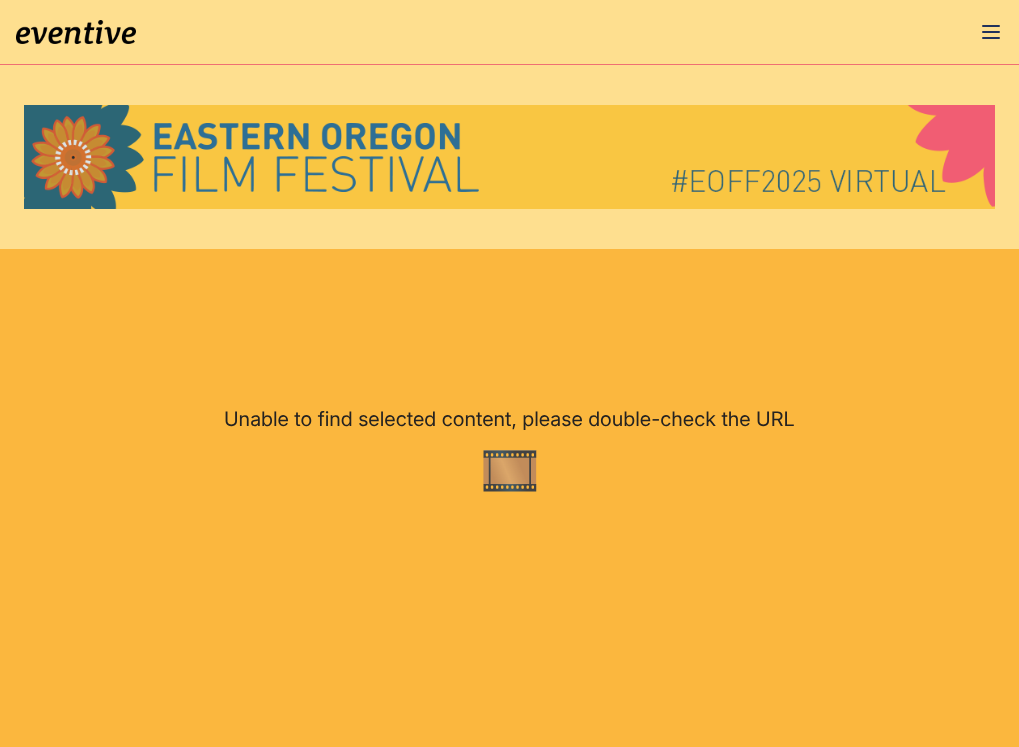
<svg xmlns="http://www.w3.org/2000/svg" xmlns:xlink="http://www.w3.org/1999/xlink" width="1019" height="747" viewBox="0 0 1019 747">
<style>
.cls-1{font:20px Inter;fill:#242221}
.cls-2{font:48px Noto Color Emoji;fill:#000000}
</style>
<rect width="100%" height="100%" fill="#fedf8f"/>
<rect fill="#ef6f73" x="0" y="64" width="1019" height="1"/>
<image xlink:href="image0.png" x="16" y="20" width="120" height="24"/>
<path fill="none" stroke="#21325c" stroke-width="2" stroke-linecap="round" stroke-linejoin="round" d="M983 26H999M983 32H999M983 38H999"/>
<image xlink:href="image1.png" x="24" y="105" width="971" height="104"/>
<rect fill="#fbb73e" x="0" y="249" width="1019" height="498"/>
<text class="cls-1" x="224" y="426">Unable to find selected content, please double-check the URL</text>
<text class="cls-2" x="480" y="487">🎞️</text>
</svg>
